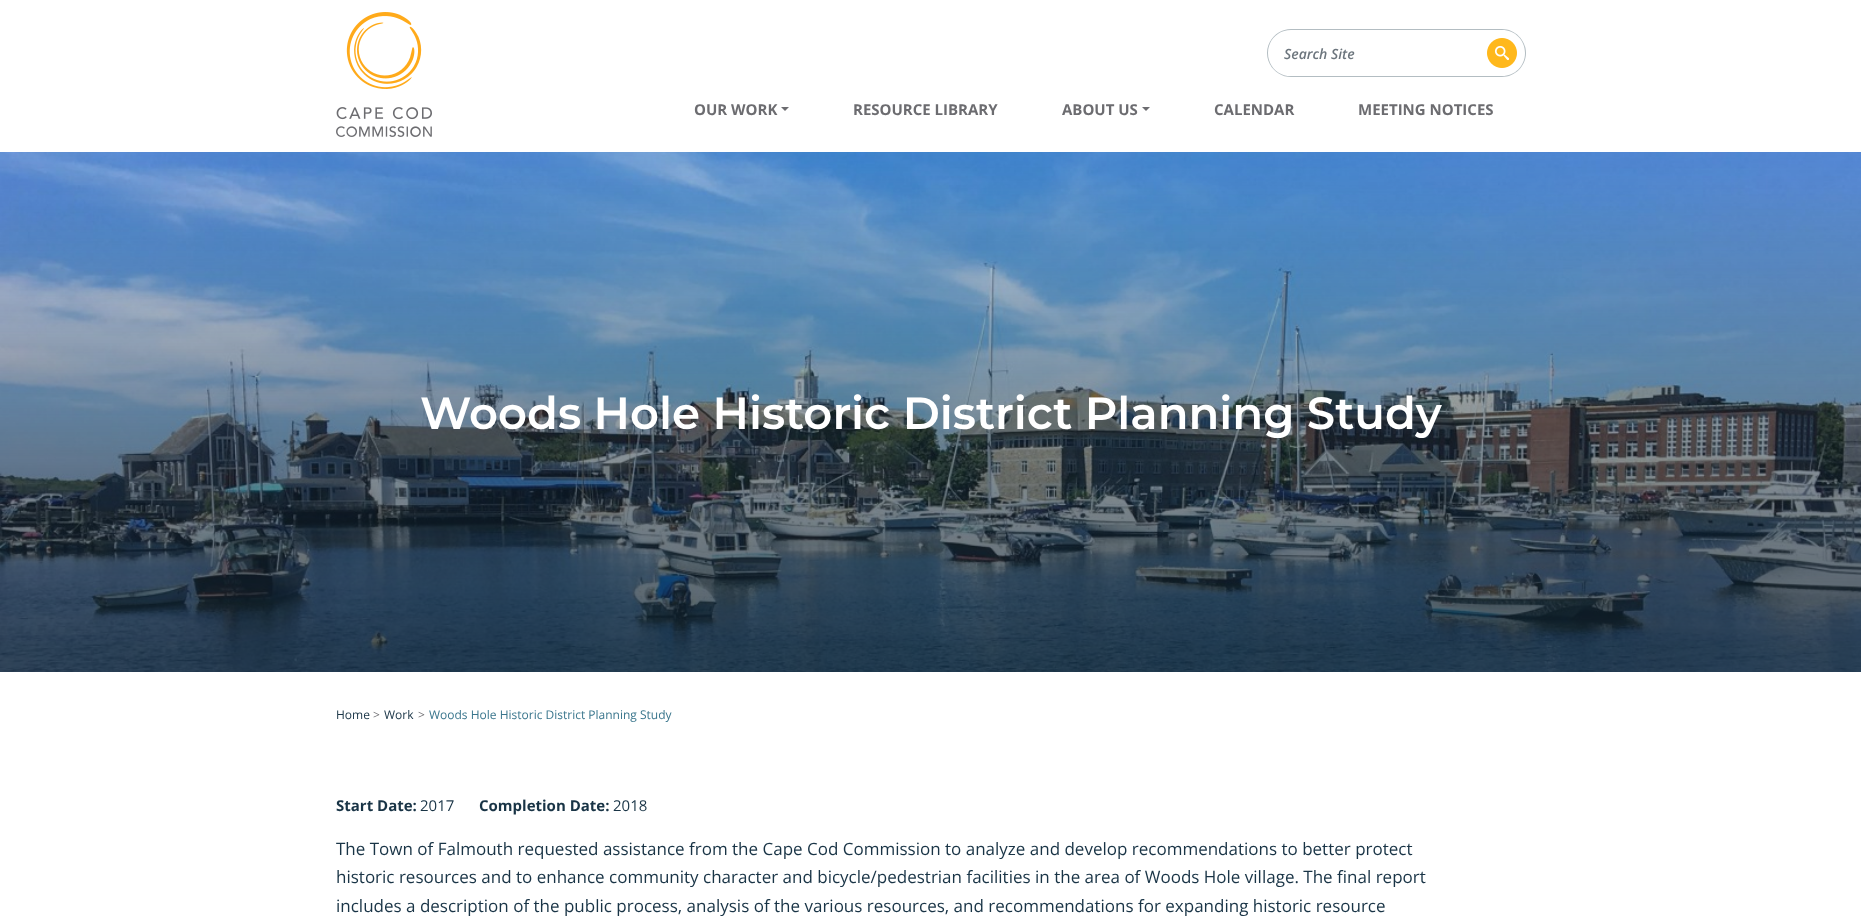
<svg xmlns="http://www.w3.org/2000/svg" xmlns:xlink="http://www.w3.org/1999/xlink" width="1861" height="919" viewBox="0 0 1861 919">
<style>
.cls-1{font:italic 600 14px Open Sans;fill:#6c757d}
.cls-2{font:bold 15px Open Sans;fill:#6c6c70}
.cls-3{font:600 45px Montserrat;fill:#ffffff}
.cls-4{font:12px Open Sans;fill:#193446}
.cls-5{font:12px Open Sans;fill:#6c6c70}
.cls-6{font:12px Open Sans;fill:#3a768d}
.cls-7{font:bold 15px Open Sans;fill:#193446}
.cls-8{font:15px Open Sans;fill:#193446}
.cls-9{font:17px Open Sans;fill:#193446}
</style>
<rect width="100%" height="100%" fill="#ffffff"/>
<image xlink:href="image0.png" x="336" y="12" width="96" height="125"/>
<path fill="#b3bdc2" fill-rule="evenodd" d="M1291 29H1479V77H1291C1278 77 1267 66 1267 53C1267 40 1278 29 1291 29ZM1291 30H1479V76H1291C1278 76 1268 66 1268 53C1268 40 1278 30 1291 30Z"/>
<path fill="#b3bdc2" fill-rule="evenodd" d="M1479 29H1502C1515 29 1526 40 1526 53C1526 66 1515 77 1502 77H1479ZM1479 30H1502C1515 30 1525 40 1525 53C1525 66 1515 76 1502 76H1479Z"/>
<image xlink:href="image1.png" x="1487" y="38" width="30" height="30"/>
<path fill="#6c6c70" d="M781 107H789L785 111Z"/>
<path fill="#6c6c70" d="M1142 107H1150L1146 111Z"/>
<image xlink:href="image2.png" x="0" y="152" width="1861" height="520"/>
<text class="cls-1" x="1284" y="59">Search Site</text>
<text class="cls-2" x="694" y="115">OUR WORK</text>
<text class="cls-2" x="853" y="115">RESOURCE LIBRARY</text>
<text class="cls-2" x="1062" y="115">ABOUT US</text>
<text class="cls-2" x="1214" y="115">CALENDAR</text>
<text class="cls-2" x="1358" y="115">MEETING NOTICES</text>
<text class="cls-3" x="420" y="429">Woods Hole Historic District Planning Study</text>
<text class="cls-4" x="336" y="719">Home</text>
<text class="cls-5" x="373" y="719">&gt;</text>
<text class="cls-4" x="384" y="719">Work</text>
<text class="cls-5" x="418" y="719">&gt;</text>
<text class="cls-6" x="429" y="719">Woods Hole Historic District Planning Study</text>
<text class="cls-7" x="336" y="811">Start Date:</text>
<text class="cls-8" x="420" y="811">2017</text>
<text class="cls-7" x="479" y="811">Completion Date:</text>
<text class="cls-8" x="613" y="811">2018</text>
<text class="cls-9"><tspan x="336" y="855">The Town of Falmouth requested assistance from the Cape Cod Commission to analyze and develop recommendations to better protect</tspan><tspan x="336" y="883">historic resources and to enhance community character and bicycle/pedestrian facilities in the area of Woods Hole village. The final report</tspan><tspan x="336" y="912">includes a description of the public process, analysis of the various resources, and recommendations for expanding historic resource</tspan></text>
</svg>
